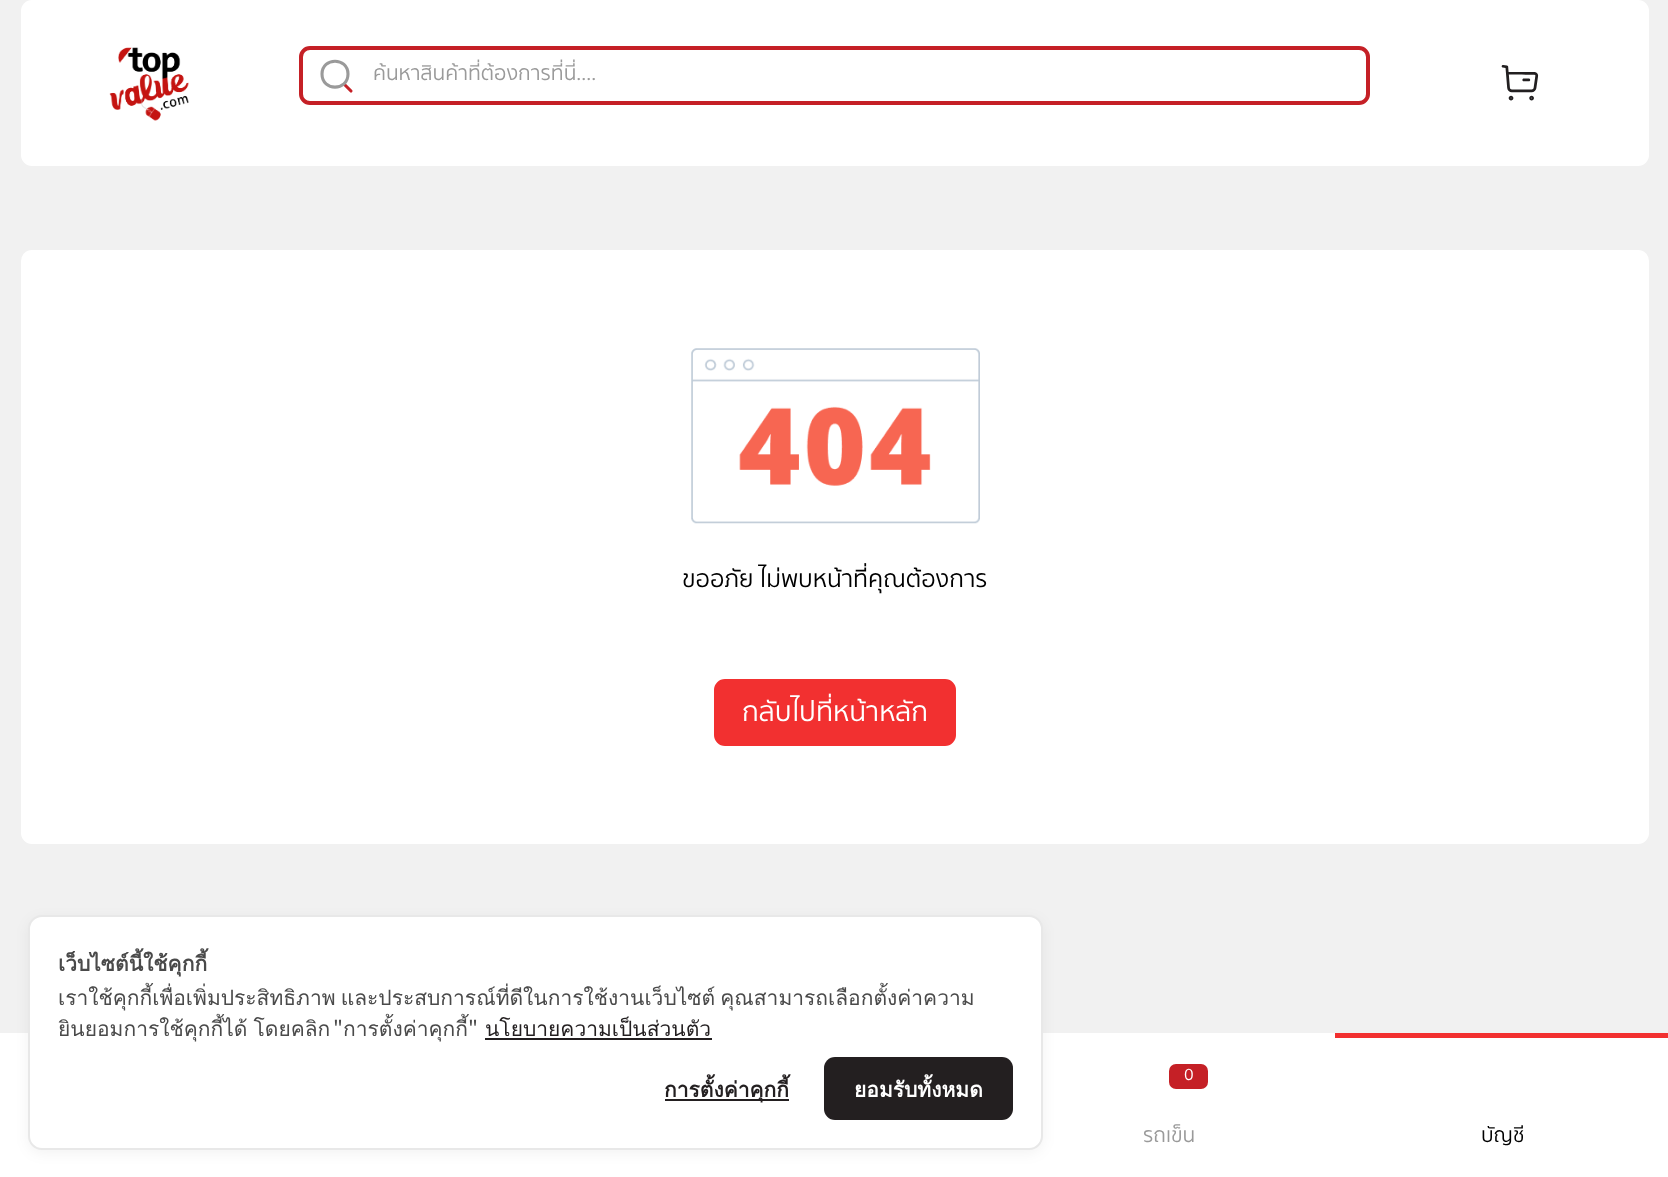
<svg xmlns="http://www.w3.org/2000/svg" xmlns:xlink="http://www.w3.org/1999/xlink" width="1668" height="1177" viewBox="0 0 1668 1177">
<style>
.cls-1{font:21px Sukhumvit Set;fill:#9a9a9a}
.cls-2{font:24.5px Sukhumvit Set;fill:#000000}
.cls-3{font:28px Sukhumvit Set;fill:#ffffff}
.cls-4{font:17px Sukhumvit Set;fill:#ffffff}
.cls-5{font:21px Sukhumvit Set;fill:#000000}
.cls-6{font:bold 21px Loma;fill:#4a4a4a}
.cls-7{font:21px Loma;fill:#4a4a4a}
.cls-8{font:21px Noto Sans JP;fill:#4a4a4a}
.cls-9{font:21px Loma;fill:#231f20}
.cls-10{font:bold 21px Loma;fill:#231f20}
.cls-11{font:bold 21px Loma;fill:#ffffff}
</style>
<defs>
<clipPath id="clip1"><rect x="373" y="58" width="966" height="33"/></clipPath>
</defs>
<rect width="100%" height="100%" fill="#f1f1f1"/>
<rect fill="#ffffff" x="21" y="0" width="1628" height="166" rx="11"/>
<image xlink:href="image0.png" x="109" y="47" width="80" height="74"/>
<path fill="none" stroke="#c52026" stroke-width="3.1" stroke-linecap="round" stroke-linejoin="round" d="M345 85L351 91"/>
<path fill="none" stroke="#9a9a9a" stroke-width="3.1" stroke-linecap="round" stroke-linejoin="round" d="M348 74C348 91.5 322 91.5 322 74C322 57 348 57 348 74Z"/>
<rect fill="none" stroke="#c52026" stroke-width="4" x="301" y="48" width="1067" height="55" rx="9"/>
<image xlink:href="image1.png" x="1501" y="65" width="38" height="36"/>
<rect fill="#ffffff" x="21" y="250" width="1628" height="594" rx="11"/>
<image xlink:href="image2.png" x="691" y="348" width="289" height="176"/>
<rect fill="#f23030" stroke="#f23030" stroke-width="2" x="715" y="680" width="240" height="65" rx="10"/>
<rect fill="#ffffff" x="0" y="1033" width="1668" height="144"/>
<rect fill="#c52026" x="1169" y="1064" width="39" height="25" rx="7"/>
<rect fill="#f23030" x="1335" y="1033" width="333" height="5"/>
<rect fill="#000000" fill-opacity="0.05" filter="blur(7px)" x="28" y="919" width="1015" height="234" rx="14"/>
<rect fill="#ffffff" stroke="#e8e8e8" stroke-width="2" x="29" y="916" width="1013" height="233" rx="13"/>
<rect fill="#231f20" x="485" y="1038" width="227" height="2"/>
<rect fill="#231f20" x="665" y="1099" width="124" height="2"/>
<rect fill="#231f20" x="824" y="1057" width="189" height="63" rx="11"/>
<g clip-path="url(#clip1)">
<text class="cls-1" x="373" y="80">ค้นหาสินค้าที่ต้องการที่นี่....</text>
</g>
<text class="cls-2" x="682" y="587">ขออภัย ไม่พบหน้าที่คุณต้องการ</text>
<text class="cls-3" x="742" y="721">กลับไปที่หน้าหลัก</text>
<text class="cls-4" x="1184" y="1080">0</text>
<text class="cls-1" x="1143" y="1142">รถเข็น</text>
<text class="cls-5" x="1481" y="1142">บัญชี</text>
<text class="cls-6" x="58" y="971">เว็บไซต์นี้ใช้คุกกี้</text>
<text class="cls-7"><tspan x="58" y="1005" word-spacing="-2">เราใช้คุกกี้เพื่อเพิ่มประสิทธิภาพ และประสบการณ์ที่ดีในการใช้งานเว็บไซต์ คุณสามารถเลือกตั้งค่าความ</tspan><tspan x="58" y="1036" word-spacing="-1">ยินยอมการใช้คุกกี้ได้ โดยคลิก</tspan></text>
<text class="cls-8" x="333" y="1036">"</text>
<text class="cls-7" x="343" y="1036">การตั้งค่าคุกกี้</text>
<text class="cls-8" x="468" y="1036">"</text>
<text class="cls-9" x="485" y="1036">นโยบายความเป็นส่วนตัว</text>
<text class="cls-10" x="664" y="1097">การตั้งค่าคุกกี้</text>
<text class="cls-11" x="854" y="1097">ยอมรับทั้งหมด</text>
</svg>
